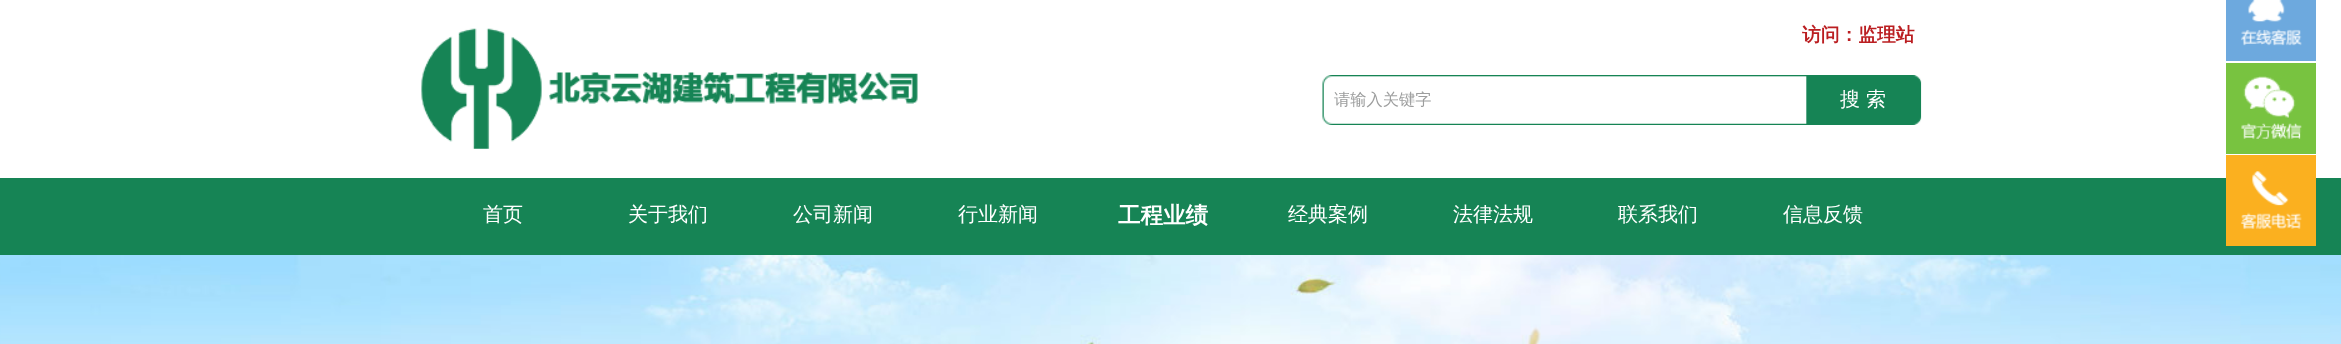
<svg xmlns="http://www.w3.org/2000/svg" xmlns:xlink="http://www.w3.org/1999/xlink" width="2341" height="344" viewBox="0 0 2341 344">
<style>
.cls-1{font:bold 18.75px WenQuanYi Zen Hei;fill:#bb1e21}
.cls-2{font:500 16.25px WenQuanYi Zen Hei;fill:#9d9e9e}
.cls-3{font:500 20px WenQuanYi Zen Hei;fill:#ffffff}
.cls-4{font:bold 22.5px WenQuanYi Zen Hei;fill:#ffffff}
</style>
<rect width="100%" height="100%" fill="#ffffff"/>
<image xlink:href="image0.png" x="421" y="28" width="497" height="121"/>
<image xlink:href="image1.png" x="1322" y="75" width="600" height="50"/>
<rect fill="#6da9de" x="2226" y="0" width="90" height="61"/>
<image xlink:href="image2.png" x="2241" y="0" width="61" height="46"/>
<rect fill="#78c340" x="2226" y="63" width="90" height="91"/>
<image xlink:href="image3.png" x="2241" y="76" width="61" height="63"/>
<rect fill="#168455" x="0" y="178" width="2341" height="77"/>
<rect fill="#fbb01f" x="2226" y="155" width="90" height="91"/>
<image xlink:href="image4.png" x="2240" y="171" width="62" height="58"/>
<image xlink:href="image5.png" x="0" y="255" width="2341" height="89"/>
<text class="cls-1" x="1802" y="41">访问：监理站</text>
<text class="cls-2" x="1334" y="105">请输入关键字</text>
<text class="cls-3" x="1840" y="106">搜 索</text>
<text class="cls-3" x="483" y="221">首页</text>
<text class="cls-3" x="628" y="221">关于我们</text>
<text class="cls-3" x="793" y="221">公司新闻</text>
<text class="cls-3" x="958" y="221">行业新闻</text>
<text class="cls-4" x="1118" y="223">工程业绩</text>
<text class="cls-3" x="1288" y="221">经典案例</text>
<text class="cls-3" x="1453" y="221">法律法规</text>
<text class="cls-3" x="1618" y="221">联系我们</text>
<text class="cls-3" x="1783" y="221">信息反馈</text>
</svg>
